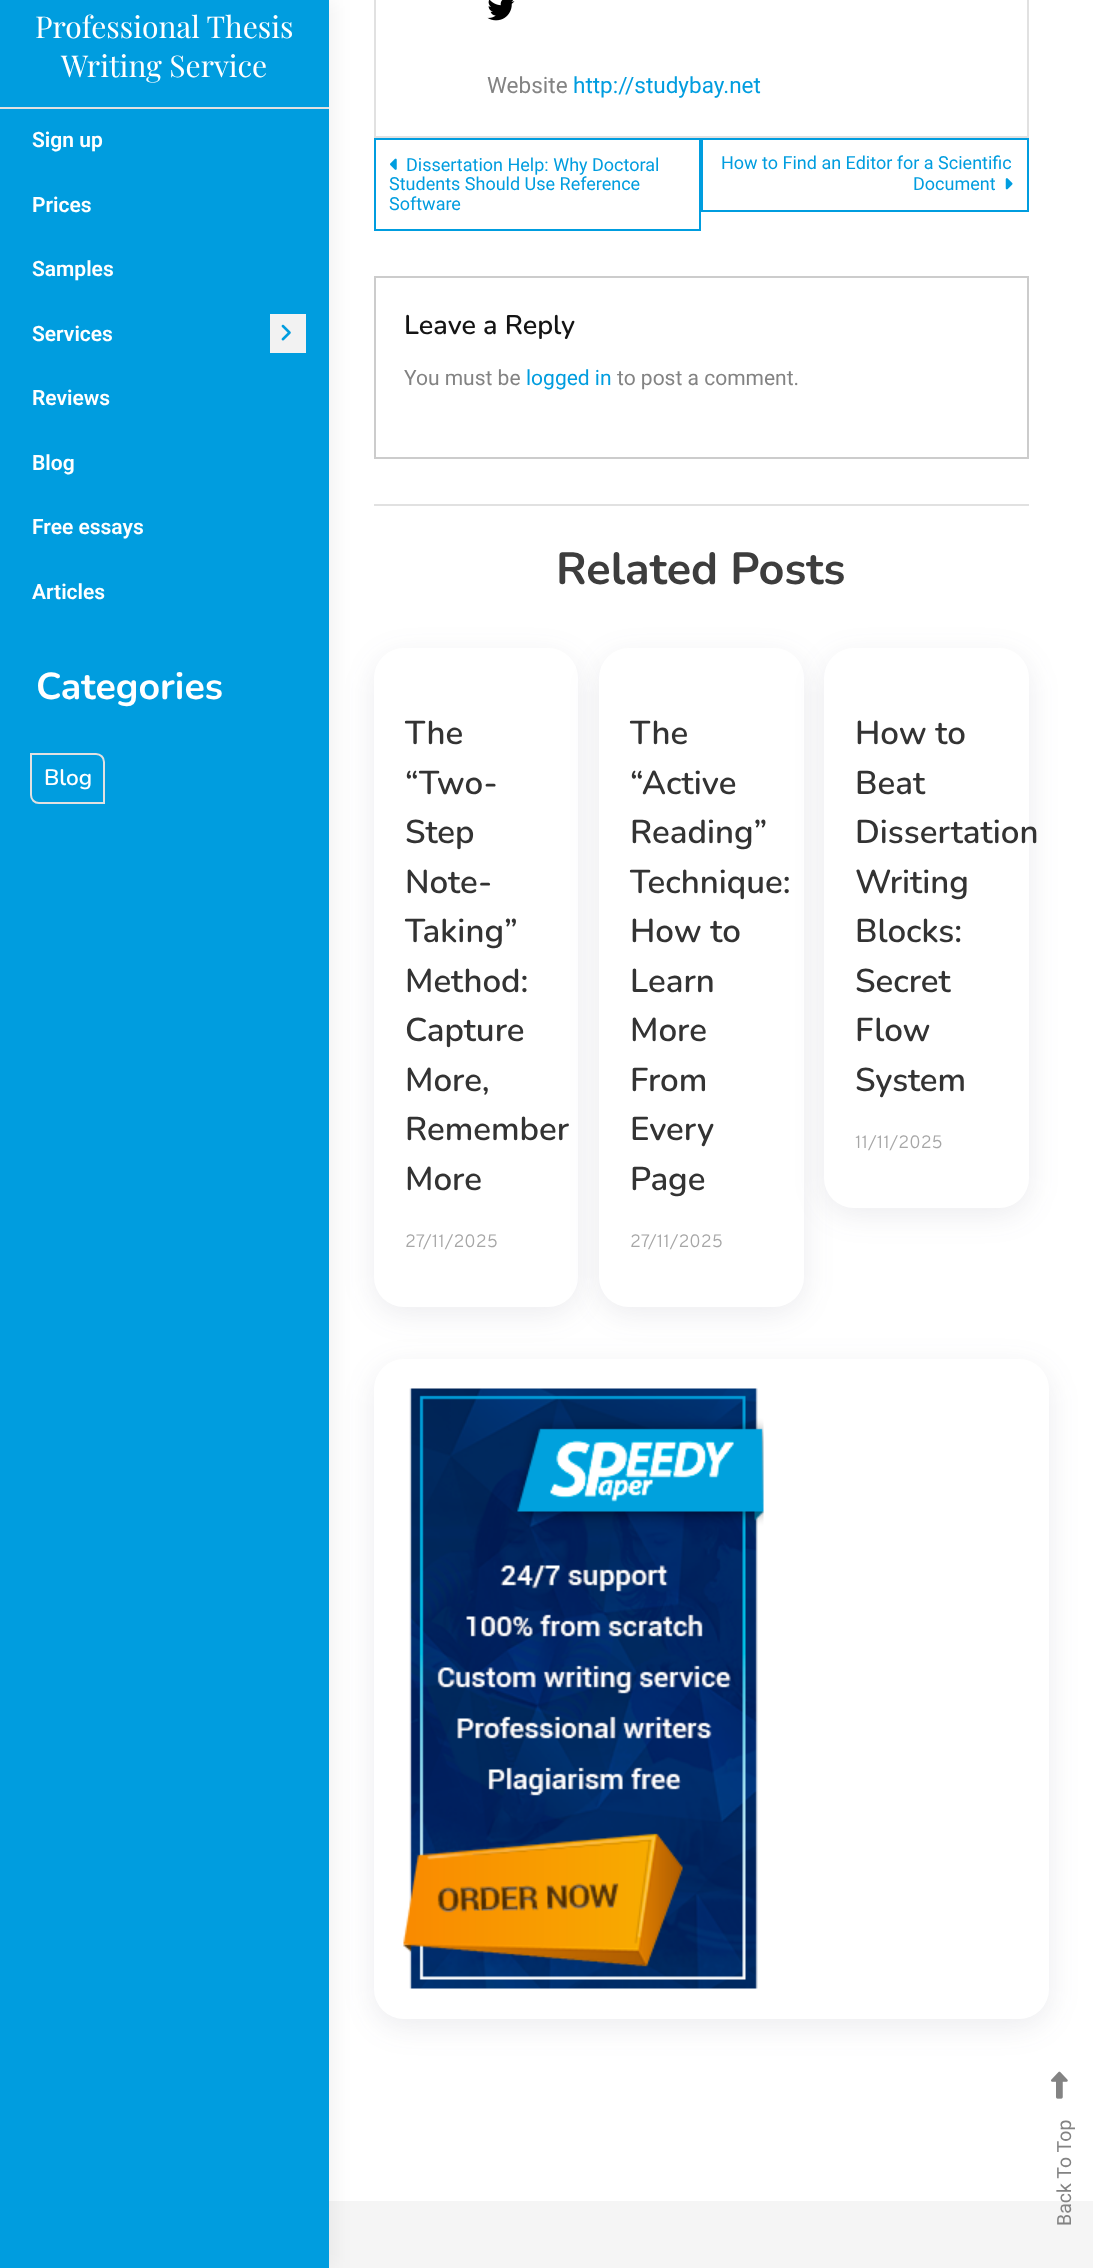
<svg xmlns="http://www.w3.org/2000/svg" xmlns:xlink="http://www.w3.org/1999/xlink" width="1093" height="2268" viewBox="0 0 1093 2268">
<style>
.cls-1{font:30px Playfair Display;fill:#ffffff}
.cls-2{font:600 21px Roboto;fill:#ffffff}
.cls-3{font:bold 37.5px Nunito;fill:#ffffff}
.cls-4{font:600 22.5px Nunito;fill:#ffffff}
.cls-5{font:22.5px Roboto;fill:#838383}
.cls-6{font:22.5px Roboto;fill:#009ddf}
.cls-7{font:18px Roboto;fill:#009ddf}
.cls-8{font:600 27px Nunito;fill:#141414}
.cls-9{font:21px Roboto;fill:#838383}
.cls-10{font:21px Roboto;fill:#009ddf}
.cls-11{font:bold 45px Nunito;fill:#3d3d3d}
.cls-12{font:600 33px Nunito;fill:#333333}
.cls-13{font:300 18px Overpass;fill:#a6a6a6}
.cls-14{font:19.5px Roboto;fill:#838383}
</style>
<rect width="100%" height="100%" fill="#ffffff"/>
<rect fill="#f5f5f5" x="329" y="2201" width="764" height="67"/>
<rect fill="#020202" fill-opacity="0.05" filter="blur(9px)" x="6" y="0" width="329" height="2268"/>
<rect fill="#009ddf" x="0" y="0" width="329" height="2268"/>
<rect fill="#e1e1e1" x="0" y="107" width="329" height="2"/>
<rect fill="#f2f2f2" x="270" y="314" width="36" height="39"/>
<image xlink:href="image0.png" x="281" y="324" width="10" height="17"/>
<path fill="none" stroke="#e1e1e1" stroke-width="2" d="M31 754H96C100.5 754 104 757.5 104 762V803H39C34.5 803 31 799.5 31 795Z"/>
<rect fill="none" stroke="#e1e1e1" stroke-width="2" x="375" y="-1" width="653" height="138"/>
<image xlink:href="image1.png" x="487" y="0" width="28" height="21"/>
<rect fill="none" stroke="#009ddf" stroke-width="2" x="375" y="139" width="325" height="91"/>
<image xlink:href="image2.png" x="390" y="158" width="7" height="12"/>
<rect fill="none" stroke="#009ddf" stroke-width="2" x="702" y="139" width="326" height="72"/>
<image xlink:href="image3.png" x="1005" y="178" width="8" height="12"/>
<rect fill="none" stroke="#cccccc" stroke-width="2" x="375" y="277" width="653" height="181"/>
<rect fill="#e1e1e1" x="374" y="504" width="655" height="2"/>
<rect fill="#454360" fill-opacity="0.1" filter="blur(15px)" x="374" y="656" width="204" height="658" rx="30"/>
<rect fill="#ffffff" x="374" y="648" width="204" height="659" rx="30"/>
<rect fill="#454360" fill-opacity="0.1" filter="blur(15px)" x="599" y="656" width="205" height="658" rx="30"/>
<rect fill="#ffffff" x="599" y="648" width="205" height="659" rx="30"/>
<rect fill="#454360" fill-opacity="0.1" filter="blur(15px)" x="824" y="656" width="205" height="559" rx="30"/>
<rect fill="#ffffff" x="824" y="648" width="205" height="560" rx="30"/>
<rect fill="#454360" fill-opacity="0.1" filter="blur(15px)" x="374" y="1367" width="675" height="660" rx="30"/>
<rect fill="#ffffff" x="374" y="1359" width="675" height="660" rx="30"/>
<image xlink:href="image4.png" x="403" y="1388" width="361" height="601"/>
<image xlink:href="image5.png" x="1051" y="2071" width="17" height="28"/>
<text class="cls-1" x="35" y="38">Professional Thesis</text>
<text class="cls-1" x="61" y="77">Writing Service</text>
<text class="cls-2" x="32" y="147">Sign up</text>
<text class="cls-2" x="32" y="212">Prices</text>
<text class="cls-2" x="32" y="276">Samples</text>
<text class="cls-2" x="32" y="341">Services</text>
<text class="cls-2" x="32" y="405">Reviews</text>
<text class="cls-2" x="32" y="470">Blog</text>
<text class="cls-2" x="32" y="534">Free essays</text>
<text class="cls-2" x="32" y="599">Articles</text>
<text class="cls-3" x="36" y="699">Categories</text>
<text class="cls-4" x="44" y="785">Blog</text>
<text class="cls-5" x="487" y="93">Website</text>
<text class="cls-6" x="573" y="93">http://studybay.net</text>
<text class="cls-7" x="406" y="171">Dissertation Help: Why Doctoral</text>
<text class="cls-7"><tspan x="389" y="190">Students Should Use Reference</tspan><tspan x="389" y="210">Software</tspan></text>
<text class="cls-7" x="721" y="169">How to Find an Editor for a Scientific</text>
<text class="cls-7" x="913" y="190">Document</text>
<text class="cls-8" x="404" y="334">Leave a Reply</text>
<text class="cls-9" x="404" y="385">You must be</text>
<text class="cls-10" x="526" y="385">logged in</text>
<text class="cls-9" x="617" y="385">to post a comment.</text>
<text class="cls-11" x="556" y="584">Related Posts</text>
<text class="cls-12"><tspan x="405" y="744">The</tspan><tspan x="405" y="794">“Two-</tspan><tspan x="405" y="843">Step</tspan><tspan x="405" y="893">Note-</tspan><tspan x="405" y="942">Taking”</tspan><tspan x="405" y="992">Method:</tspan><tspan x="405" y="1041">Capture</tspan><tspan x="405" y="1091">More,</tspan><tspan x="405" y="1140">Remember</tspan><tspan x="405" y="1190">More</tspan></text>
<text class="cls-13" x="405" y="1247">27/11/2025</text>
<text class="cls-12"><tspan x="630" y="744">The</tspan><tspan x="630" y="794">“Active</tspan><tspan x="630" y="843">Reading”</tspan><tspan x="630" y="893">Technique:</tspan><tspan x="630" y="942">How to</tspan><tspan x="630" y="992">Learn</tspan><tspan x="630" y="1041">More</tspan><tspan x="630" y="1091">From</tspan><tspan x="630" y="1140">Every</tspan><tspan x="630" y="1190">Page</tspan></text>
<text class="cls-13" x="630" y="1247">27/11/2025</text>
<text class="cls-12"><tspan x="855" y="744">How to</tspan><tspan x="855" y="794">Beat</tspan><tspan x="855" y="843">Dissertation</tspan><tspan x="855" y="893">Writing</tspan><tspan x="855" y="942">Blocks:</tspan><tspan x="855" y="992">Secret</tspan><tspan x="855" y="1041">Flow</tspan><tspan x="855" y="1091">System</tspan></text>
<text class="cls-13" x="855" y="1148">11/11/2025</text>
<text class="cls-14" x="1071" y="2226" transform="rotate(-90 1071 2226)">Back To Top</text>
</svg>
